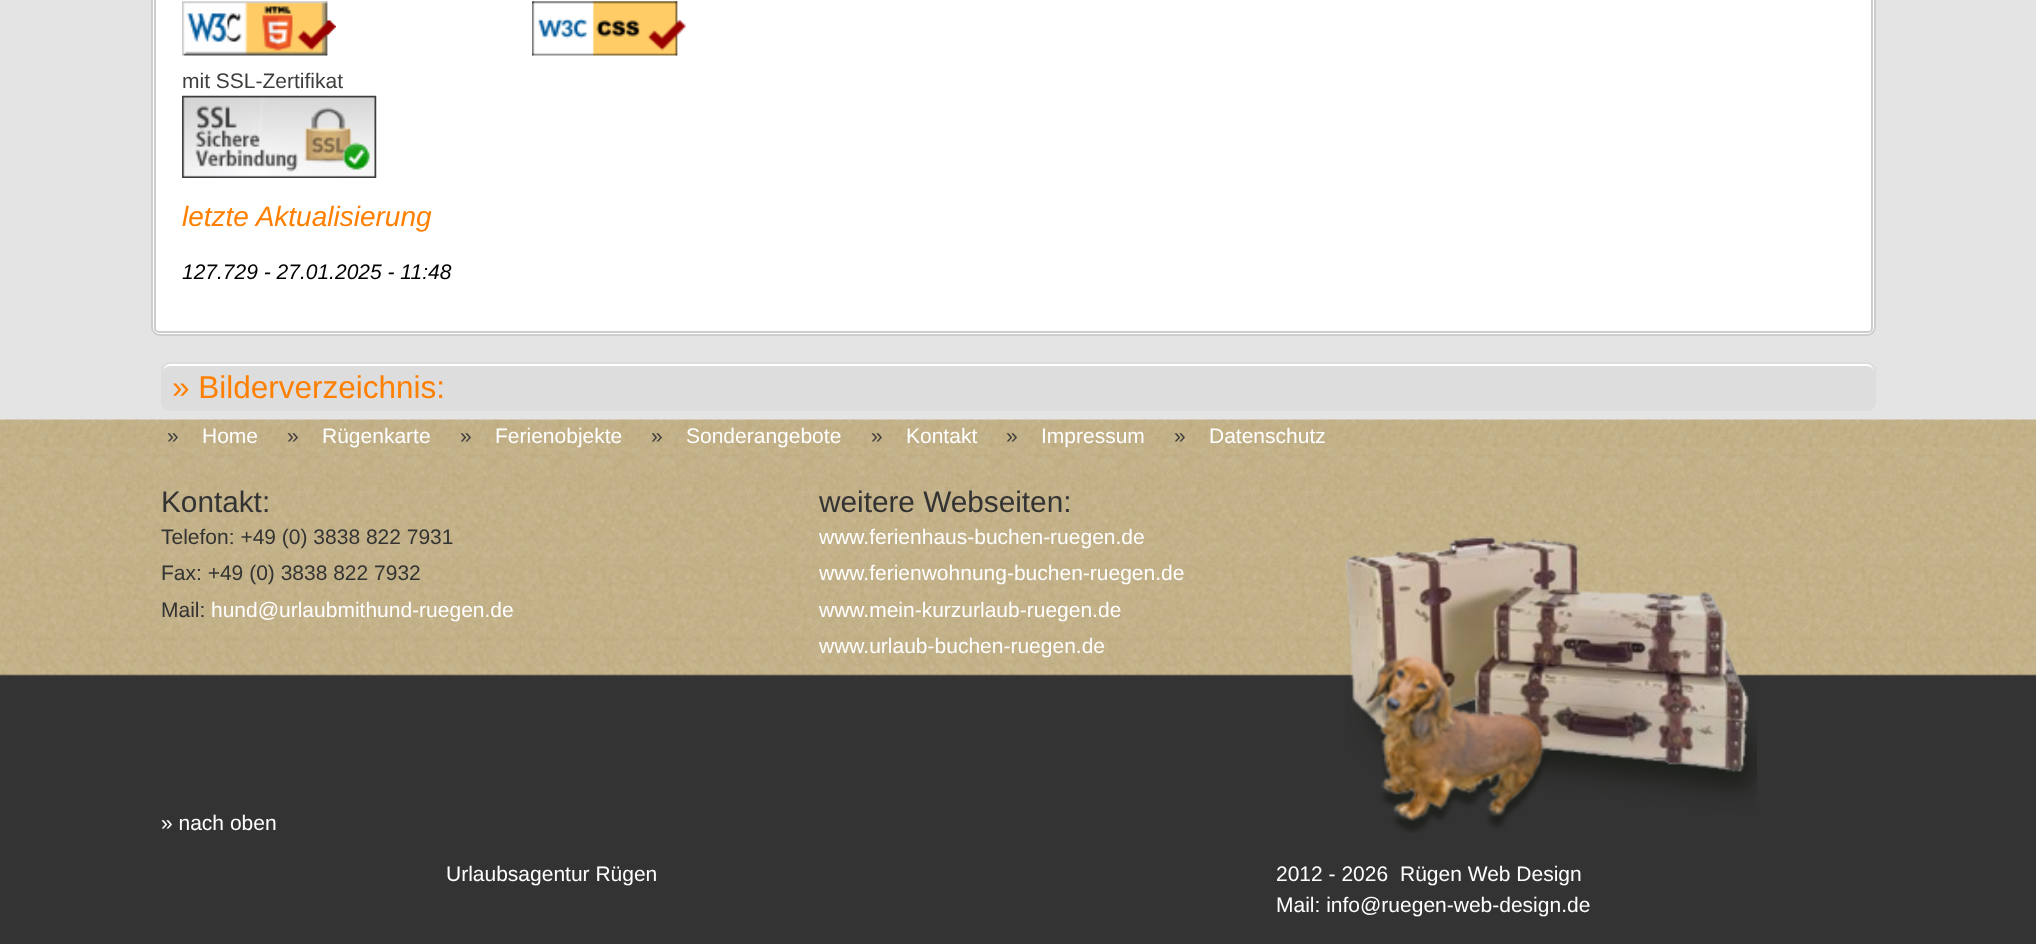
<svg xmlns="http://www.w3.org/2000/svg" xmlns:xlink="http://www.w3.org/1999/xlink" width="2036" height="944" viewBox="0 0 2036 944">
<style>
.cls-1{font:21px Liberation Sans;fill:#3f3e3c}
.cls-2{font:italic 28px Liberation Sans;fill:#ff7f00}
.cls-3{font:italic 21px Liberation Sans;fill:#000000}
.cls-4{font:31.5px Liberation Sans;fill:#ff7f00}
.cls-5{font:21px Liberation Sans;fill:#ffffff}
.cls-6{font:29.75px Liberation Sans;fill:#333333}
.cls-7{font:21px Liberation Sans;fill:#333333}
</style>
<rect width="100%" height="100%" fill="#e4e4e4"/>
<rect fill="#ffffff" stroke="#cdcdcd" stroke-width="2" x="152" y="-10" width="1723" height="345" rx="8"/>
<rect fill="none" stroke="#cdcdcd" stroke-width="2" x="155" y="-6" width="1717" height="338" rx="4"/>
<image xlink:href="image0.png" x="182" y="1" width="154" height="55"/>
<image xlink:href="image1.png" x="532" y="1" width="154" height="55"/>
<image xlink:href="image2.png" x="182" y="95" width="195" height="83"/>
<rect fill="#dddddd" x="161" y="362" width="1715" height="49" rx="9"/>
<path fill="#ffffff" d="M170 366H1867C1871 366 1874 369 1874 373C1874 369 1872 364 1867 364H170C165 364 163 369 163 373C163 369 166 366 170 366Z"/>
<rect fill="none" stroke="#dddddd" stroke-width="2" x="162" y="363" width="1713" height="47" rx="8"/>
<rect fill="#333333" x="0" y="676" width="2036" height="268"/>
<image xlink:href="image3.png" x="0" y="419" width="2036" height="257"/>
<image xlink:href="image4.png" x="1345" y="536" width="412" height="297"/>
<text class="cls-1" x="182" y="88">mit SSL-Zertifikat</text>
<text class="cls-2" x="182" y="226">letzte Aktualisierung</text>
<text class="cls-3" x="182" y="279">127.729 - 27.01.2025 - 11:48</text>
<text class="cls-4" x="172" y="398">» Bilderverzeichnis:</text>
<text class="cls-1" x="167" y="443">»</text>
<text class="cls-5" x="202" y="443">Home</text>
<text class="cls-1" x="287" y="443">»</text>
<text class="cls-5" x="322" y="443">Rügenkarte</text>
<text class="cls-1" x="460" y="443">»</text>
<text class="cls-5" x="495" y="443">Ferienobjekte</text>
<text class="cls-1" x="651" y="443">»</text>
<text class="cls-5" x="686" y="443">Sonderangebote</text>
<text class="cls-1" x="871" y="443">»</text>
<text class="cls-5" x="906" y="443">Kontakt</text>
<text class="cls-1" x="1006" y="443">»</text>
<text class="cls-5" x="1041" y="443">Impressum</text>
<text class="cls-1" x="1174" y="443">»</text>
<text class="cls-5" x="1209" y="443">Datenschutz</text>
<text class="cls-6" x="161" y="512">Kontakt:</text>
<text class="cls-7"><tspan x="161" y="544">Telefon: +49 (0) 3838 822 7931</tspan><tspan x="161" y="580">Fax: +49 (0) 3838 822 7932</tspan><tspan x="161" y="617">Mail:</tspan></text>
<text class="cls-5" x="211" y="617">hund@urlaubmithund-ruegen.de</text>
<text class="cls-6" x="819" y="512">weitere Webseiten:</text>
<text class="cls-5"><tspan x="819" y="544">www.ferienhaus-buchen-ruegen.de</tspan><tspan x="819" y="580">www.ferienwohnung-buchen-ruegen.de</tspan><tspan x="819" y="617">www.mein-kurzurlaub-ruegen.de</tspan><tspan x="819" y="653">www.urlaub-buchen-ruegen.de</tspan></text>
<text class="cls-5" x="161" y="830">» nach oben</text>
<text class="cls-5" x="446" y="881">Urlaubsagentur Rügen</text>
<text class="cls-5" x="1276" y="881">2012 - 2026</text>
<text class="cls-5" x="1400" y="881">Rügen Web Design</text>
<text class="cls-5" x="1276" y="912">Mail: info@ruegen-web-design.de</text>
</svg>
